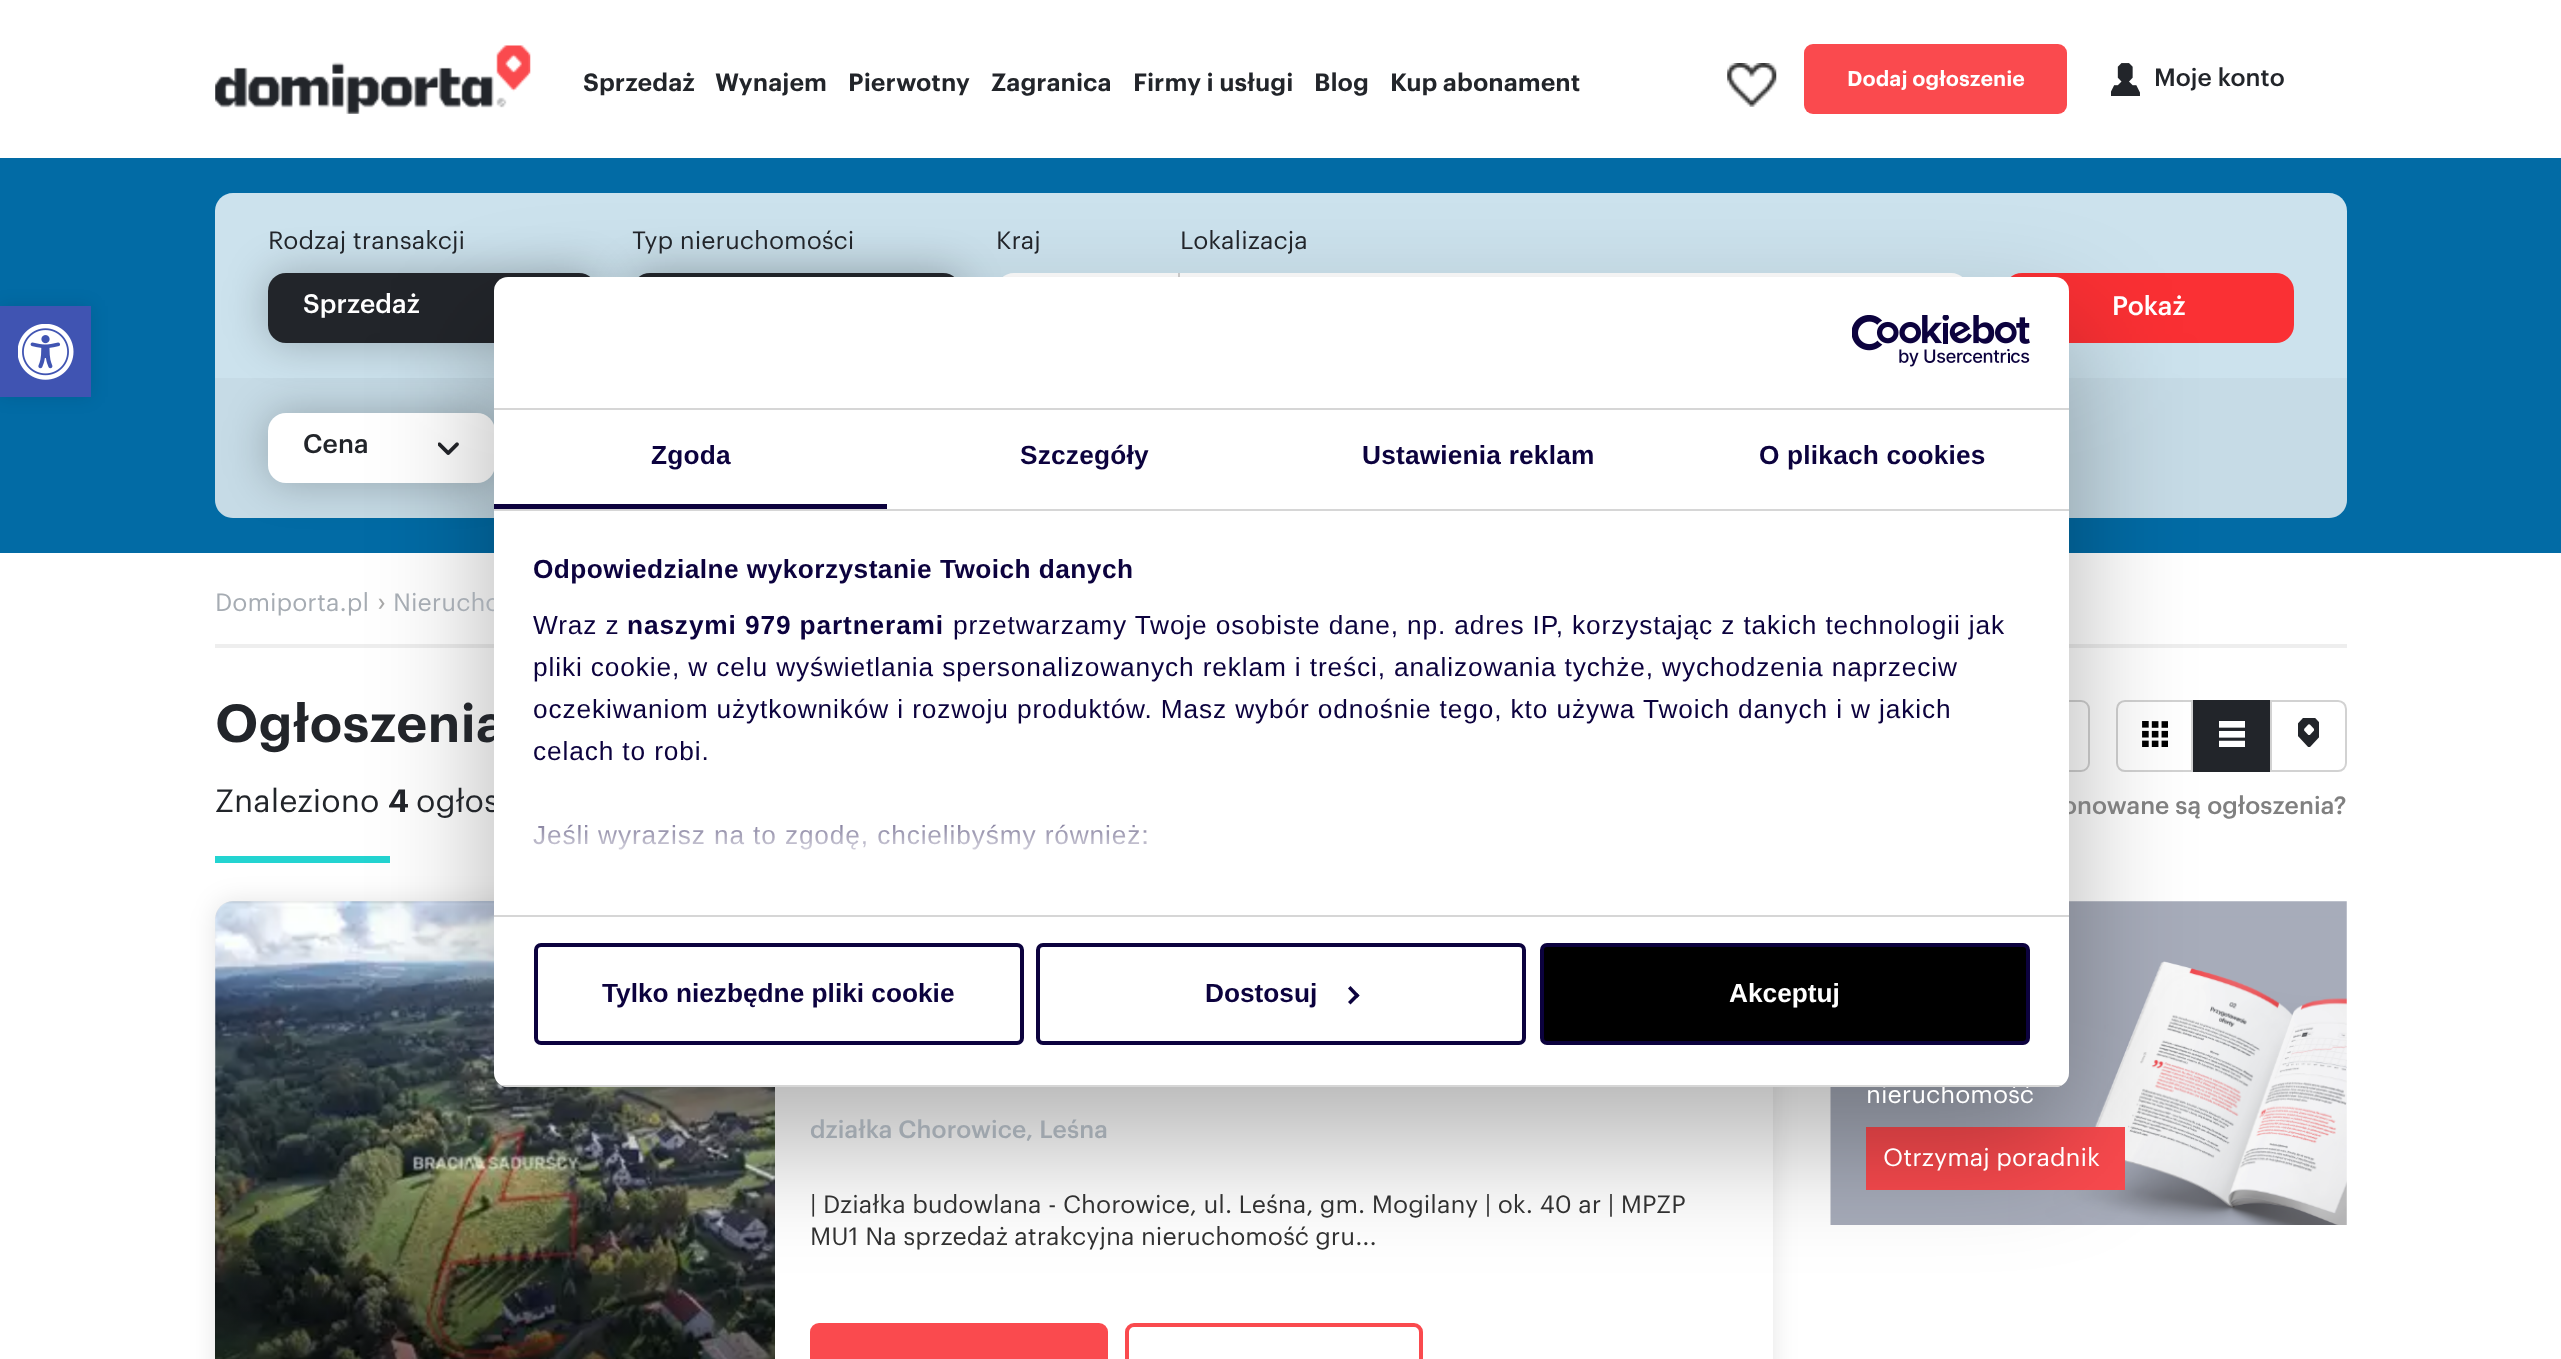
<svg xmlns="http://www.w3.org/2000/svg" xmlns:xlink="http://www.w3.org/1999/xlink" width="2561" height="1359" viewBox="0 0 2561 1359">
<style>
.cls-1{font:600 24.5px Graphik;fill:#22252a}
.cls-2{font:600 21px Graphik;fill:#ffffff}
.cls-3{font:500 24.5px Graphik;fill:#22252a}
.cls-4{font:24.5px Graphik;fill:#22252a}
.cls-5{font:500 26.25px Graphik;fill:#ffffff}
.cls-6{font:500 26.25px Graphik;fill:#22252a}
.cls-7{font:24.5px Graphik;fill:#a6acb3}
.cls-8{font:28px Graphik;fill:#a8a8a8}
.cls-9{font:600 52.5px Graphik;fill:#22252a}
.cls-10{font:31.5px Graphik;fill:#22252a}
.cls-11{font:600 31.5px Graphik;fill:#22252a}
.cls-12{font:500 24.5px Graphik;fill:#808080}
.cls-13{font:500 24.5px Graphik;fill:#9ea5ac}
.cls-14{font:24.5px Graphik;fill:#313131}
.cls-15{font:24.5px Graphik;fill:#ffffff}
.cls-16{font:bold 26.25px Liberation Sans;letter-spacing:0.2px;fill:#0c023e}
.cls-17{font:bold 26.25px Liberation Sans;letter-spacing:0.45px;fill:#0c023e}
.cls-18{font:26.25px Liberation Sans;letter-spacing:0.88px;fill:#0c023e}
.cls-19{font:bold 26.25px Liberation Sans;letter-spacing:0.88px;fill:#0c023e}
.cls-20{font:bold 26.25px Liberation Sans;fill:#0c023e}
.cls-21{font:bold 26.25px Liberation Sans;fill:#ffffff}
</style>
<defs>
<linearGradient id="g1" gradientUnits="userSpaceOnUse" x1="495" y1="901" x2="495" y2="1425"><stop offset="0.5" stop-color="#000000" stop-opacity="0"/><stop offset="1" stop-color="#000000" stop-opacity="0.6"/></linearGradient>
<linearGradient id="g2" gradientUnits="userSpaceOnUse" x1="1264" y1="914" x2="1264" y2="783"><stop offset="0" stop-color="#ffffff"/><stop offset="0.5" stop-color="#ffffff" stop-opacity="0.8"/><stop offset="1" stop-color="#ffffff" stop-opacity="0"/></linearGradient>
<clipPath id="clip1"><rect x="494" y="277" width="1575" height="810" rx="14"/></clipPath>
</defs>
<rect width="100%" height="100%" fill="#ffffff"/>
<rect fill="#026ba5" x="0" y="158" width="2561" height="395"/>
<rect fill="#000000" fill-opacity="0.1" filter="blur(9px)" x="0" y="306" width="91" height="91"/>
<rect fill="#4054b2" x="0" y="306" width="91" height="91"/>
<image xlink:href="image0.png" x="18" y="324" width="56" height="56"/>
<image xlink:href="image1.png" x="215" y="45" width="316" height="69"/>
<image xlink:href="image2.png" x="1727" y="63" width="50" height="44"/>
<rect fill="#fa4a4e" x="1804" y="44" width="263" height="70" rx="9"/>
<image xlink:href="image3.png" x="2111" y="63" width="29" height="33"/>
<path fill="#c6dbe6" d="M215 378H2347V500C2347 510 2339 518 2329 518H233C223 518 215 510 215 500Z"/>
<rect fill="#000000" fill-opacity="0.25" filter="blur(22px)" x="268" y="413" width="227" height="70" rx="18"/>
<path fill="#cce2ed" d="M233 193H2329C2339 193 2347 201 2347 211V378H215V211C215 201 223 193 233 193Z"/>
<rect fill="#000000" fill-opacity="0.25" filter="blur(22px)" x="268" y="273" width="329" height="70" rx="18"/>
<rect fill="#22252a" x="268" y="273" width="329" height="70" rx="18"/>
<rect fill="#000000" fill-opacity="0.25" filter="blur(22px)" x="632" y="273" width="329" height="70" rx="18"/>
<rect fill="#22252a" x="632" y="273" width="329" height="70" rx="18"/>
<path fill="#ffffff" d="M1014 273H1180V343H1014C1004 343 996 335 996 325V291C996 281 1004 273 1014 273Z"/>
<rect fill="#d2d2d2" x="1178" y="273" width="2" height="4"/>
<rect fill="#ffffff" x="1180" y="273" width="383" height="4"/>
<path fill="#ffffff" d="M1563 273H1951C1961 273 1969 281 1969 291V325C1969 335 1961 343 1951 343H1563Z"/>
<rect fill="#fa3034" x="2004" y="273" width="290" height="70" rx="18"/>
<rect fill="#ffffff" x="268" y="413" width="227" height="70" rx="18"/>
<image xlink:href="image4.png" x="438" y="442" width="21" height="13"/>
<rect fill="#eeeeee" x="215" y="644" width="2132" height="4"/>
<rect fill="#23d4d1" x="215" y="856" width="175" height="7"/>
<rect fill="none" stroke="#d2d2d2" stroke-width="2" x="1933" y="701" width="156" height="70" rx="8"/>
<path fill="none" stroke="#d2d2d2" stroke-width="2" d="M2125 701H2192V771H2125C2120.5 771 2117 767.5 2117 763V709C2117 704.5 2120.5 701 2125 701Z"/>
<image xlink:href="image5.png" x="2142" y="721" width="26" height="26"/>
<rect fill="#22252a" x="2193" y="700" width="77" height="72"/>
<image xlink:href="image6.png" x="2219" y="721" width="26" height="26"/>
<path fill="none" stroke="#d2d2d2" stroke-width="2" d="M2271 701H2338C2342.5 701 2346 704.5 2346 709V763C2346 767.5 2342.5 771 2338 771H2271Z"/>
<image xlink:href="image7.png" x="2298" y="718" width="21" height="29"/>
<rect fill="#000000" fill-opacity="0.1" filter="blur(13px)" x="215" y="901" width="1558" height="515" rx="18"/>
<rect fill="#ffffff" x="215" y="901" width="1558" height="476" rx="18"/>
<path fill="#e6e6e6" d="M233 901H757C767 901 775 909 775 919V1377H233C223 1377 215 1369 215 1359V919C215 909 223 901 233 901Z"/>
<image xlink:href="image8.png" x="215" y="901" width="560" height="458"/>
<rect fill="url(#g1)" x="215" y="1172" width="560" height="187"/>
<rect fill="#fa4a4e" x="810" y="1323" width="298" height="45" rx="9"/>
<rect fill="none" stroke="#fa4a4e" stroke-width="4" x="1127" y="1325" width="294" height="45" rx="7"/>
<image xlink:href="image9.png" x="1830" y="901" width="517" height="324"/>
<rect fill="#fa4a4e" x="1866" y="1127" width="259" height="63"/>
<rect fill="#000000" fill-opacity="0.3" filter="blur(59.5px)" x="494" y="333" width="1575" height="810" rx="14"/>
<text class="cls-1" x="583" y="91">Sprzedaż</text>
<text class="cls-1" x="715" y="91">Wynajem</text>
<text class="cls-1" x="848" y="91">Pierwotny</text>
<text class="cls-1" x="991" y="91">Zagranica</text>
<text class="cls-1" x="1133" y="91">Firmy i usługi</text>
<text class="cls-1" x="1314" y="91">Blog</text>
<text class="cls-1" x="1390" y="91">Kup abonament</text>
<text class="cls-2" x="1847" y="86">Dodaj ogłoszenie</text>
<text class="cls-3" x="2154" y="86">Moje konto</text>
<text class="cls-4" x="268" y="249">Rodzaj transakcji</text>
<text class="cls-5" x="303" y="313">Sprzedaż</text>
<text class="cls-4" x="632" y="249">Typ nieruchomości</text>
<text class="cls-4" x="996" y="249">Kraj</text>
<text class="cls-4" x="1180" y="249">Lokalizacja</text>
<text class="cls-5" x="2112" y="315">Pokaż</text>
<text class="cls-6" x="303" y="453">Cena</text>
<text class="cls-7" x="215" y="611">Domiporta.pl</text>
<text class="cls-8" x="377" y="611">›</text>
<text class="cls-7" x="393" y="611">Nierucho</text>
<text class="cls-9" x="215" y="742">Ogłoszenia</text>
<text class="cls-10" x="215" y="812">Znaleziono</text>
<text class="cls-11" x="388" y="812">4</text>
<text class="cls-10" x="416" y="812">ogłos</text>
<text class="cls-12" x="2062" y="814">onowane są ogłoszenia?</text>
<text class="cls-13" x="810" y="1138">działka Chorowice, Leśna</text>
<text class="cls-14"><tspan x="810" y="1213">| Działka budowlana - Chorowice, ul. Leśna, gm. Mogilany | ok. 40 ar | MPZP</tspan><tspan x="810" y="1245">MU1 Na sprzedaż atrakcyjna nieruchomość gru...</tspan></text>
<text class="cls-15" x="1866" y="1103">nieruchomość</text>
<text class="cls-15" x="1883" y="1166">Otrzymaj poradnik</text>
<rect fill="#ffffff" x="494" y="277" width="1575" height="810" rx="14"/>
<rect fill="#d6d6d6" x="494" y="408" width="1575" height="2"/>
<image xlink:href="image10.png" x="1852" y="315" width="178" height="52"/>
<rect fill="#d6d6d6" x="494" y="509" width="1575" height="2"/>
<rect fill="#0c023e" x="494" y="504" width="393" height="5"/>
<text class="cls-16" x="651" y="464">Zgoda</text>
<text class="cls-16" x="1020" y="464">Szczegóły</text>
<text class="cls-16" x="1362" y="464">Ustawienia reklam</text>
<text class="cls-16" x="1759" y="464">O plikach cookies</text>
<rect fill="#d6d6d6" x="494" y="915" width="1575" height="2"/>
<text class="cls-17" x="533" y="578">Odpowiedzialne wykorzystanie Twoich danych</text>
<text class="cls-18" x="533" y="634">Wraz z</text>
<text class="cls-19" x="627" y="634">naszymi 979 partnerami</text>
<text class="cls-18" x="953" y="634">przetwarzamy Twoje osobiste dane, np. adres IP, korzystając z takich technologii jak</text>
<text class="cls-18"><tspan x="533" y="676">pliki cookie, w celu wyświetlania spersonalizowanych reklam i treści, analizowania tychże, wychodzenia naprzeciw</tspan><tspan x="533" y="718">oczekiwaniom użytkowników i rozwoju produktów. Masz wybór odnośnie tego, kto używa Twoich danych i w jakich</tspan><tspan x="533" y="760">celach to robi.</tspan></text>
<text class="cls-18" x="533" y="844">Jeśli wyrazisz na to zgodę, chcielibyśmy również:</text>
<rect fill="url(#g2)" x="533" y="824" width="613" height="26"/>
<g clip-path="url(#clip1)">
<rect fill="#d6d6d6" x="494" y="1085" width="1575" height="2"/>
</g>
<rect fill="none" stroke="#0c023e" stroke-width="4" x="536" y="945" width="486" height="98" rx="5"/>
<text class="cls-20" x="602" y="1002">Tylko niezbędne pliki cookie</text>
<rect fill="none" stroke="#0c023e" stroke-width="4" x="1038" y="945" width="486" height="98" rx="5"/>
<text class="cls-20" x="1205" y="1002">Dostosuj</text>
<path fill="#0c023e" d="M1350.5 986L1359.5 995.5L1357 998L1348 988.5Z"/>
<path fill="#0c023e" d="M1357 993L1359.5 995.5L1350.5 1004.5L1348 1002Z"/>
<rect fill="#000000" stroke="#0c023e" stroke-width="4" x="1542" y="945" width="486" height="98" rx="5"/>
<text class="cls-21" x="1729" y="1002">Akceptuj</text>
</svg>
